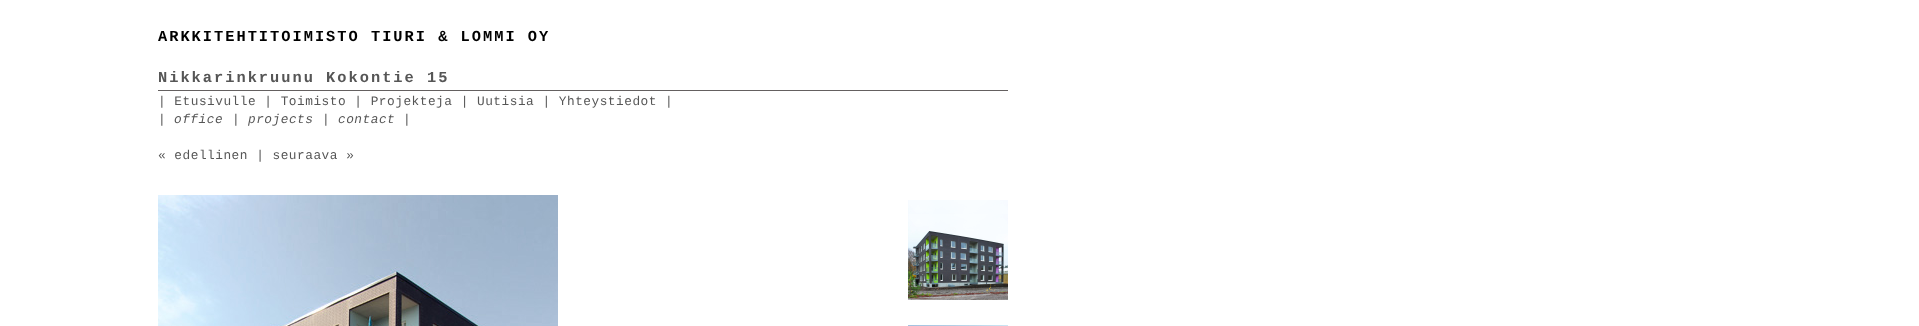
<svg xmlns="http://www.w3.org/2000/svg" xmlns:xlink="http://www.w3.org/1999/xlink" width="1919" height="326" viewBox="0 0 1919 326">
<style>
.cls-1{font:bold 15.35px Liberation Mono;letter-spacing:2px;fill:#000000}
.cls-2{font:bold 15.35px Liberation Mono;letter-spacing:2px;fill:#565656}
.cls-3{font:12.8px Liberation Mono;letter-spacing:0.5px;fill:#565656}
.cls-4{font:italic 12.8px Liberation Mono;letter-spacing:0.5px;fill:#565656}
</style>
<rect width="100%" height="100%" fill="#ffffff"/>
<rect fill="#646060" x="158" y="90" width="850" height="1"/>
<image xlink:href="image0.png" x="158" y="195" width="400" height="131"/>
<image xlink:href="image1.png" x="908" y="200" width="100" height="100"/>
<image xlink:href="image2.png" x="908" y="325" width="100" height="1"/>
<text class="cls-1" x="158" y="41">ARKKITEHTITOIMISTO TIURI &amp; LOMMI OY</text>
<text class="cls-2" x="158" y="82">Nikkarinkruunu Kokontie 15</text>
<text class="cls-3"><tspan x="158" y="105">| Etusivulle | Toimisto | Projekteja | Uutisia | Yhteystiedot |</tspan><tspan x="158" y="123">|</tspan></text>
<text class="cls-4" x="174" y="123">office</text>
<text class="cls-3" x="232" y="123">|</text>
<text class="cls-4" x="248" y="123">projects</text>
<text class="cls-3" x="322" y="123">|</text>
<text class="cls-4" x="338" y="123">contact</text>
<text class="cls-3" x="403" y="123">|</text>
<text class="cls-3" x="158" y="159">« edellinen | seuraava »</text>
</svg>
